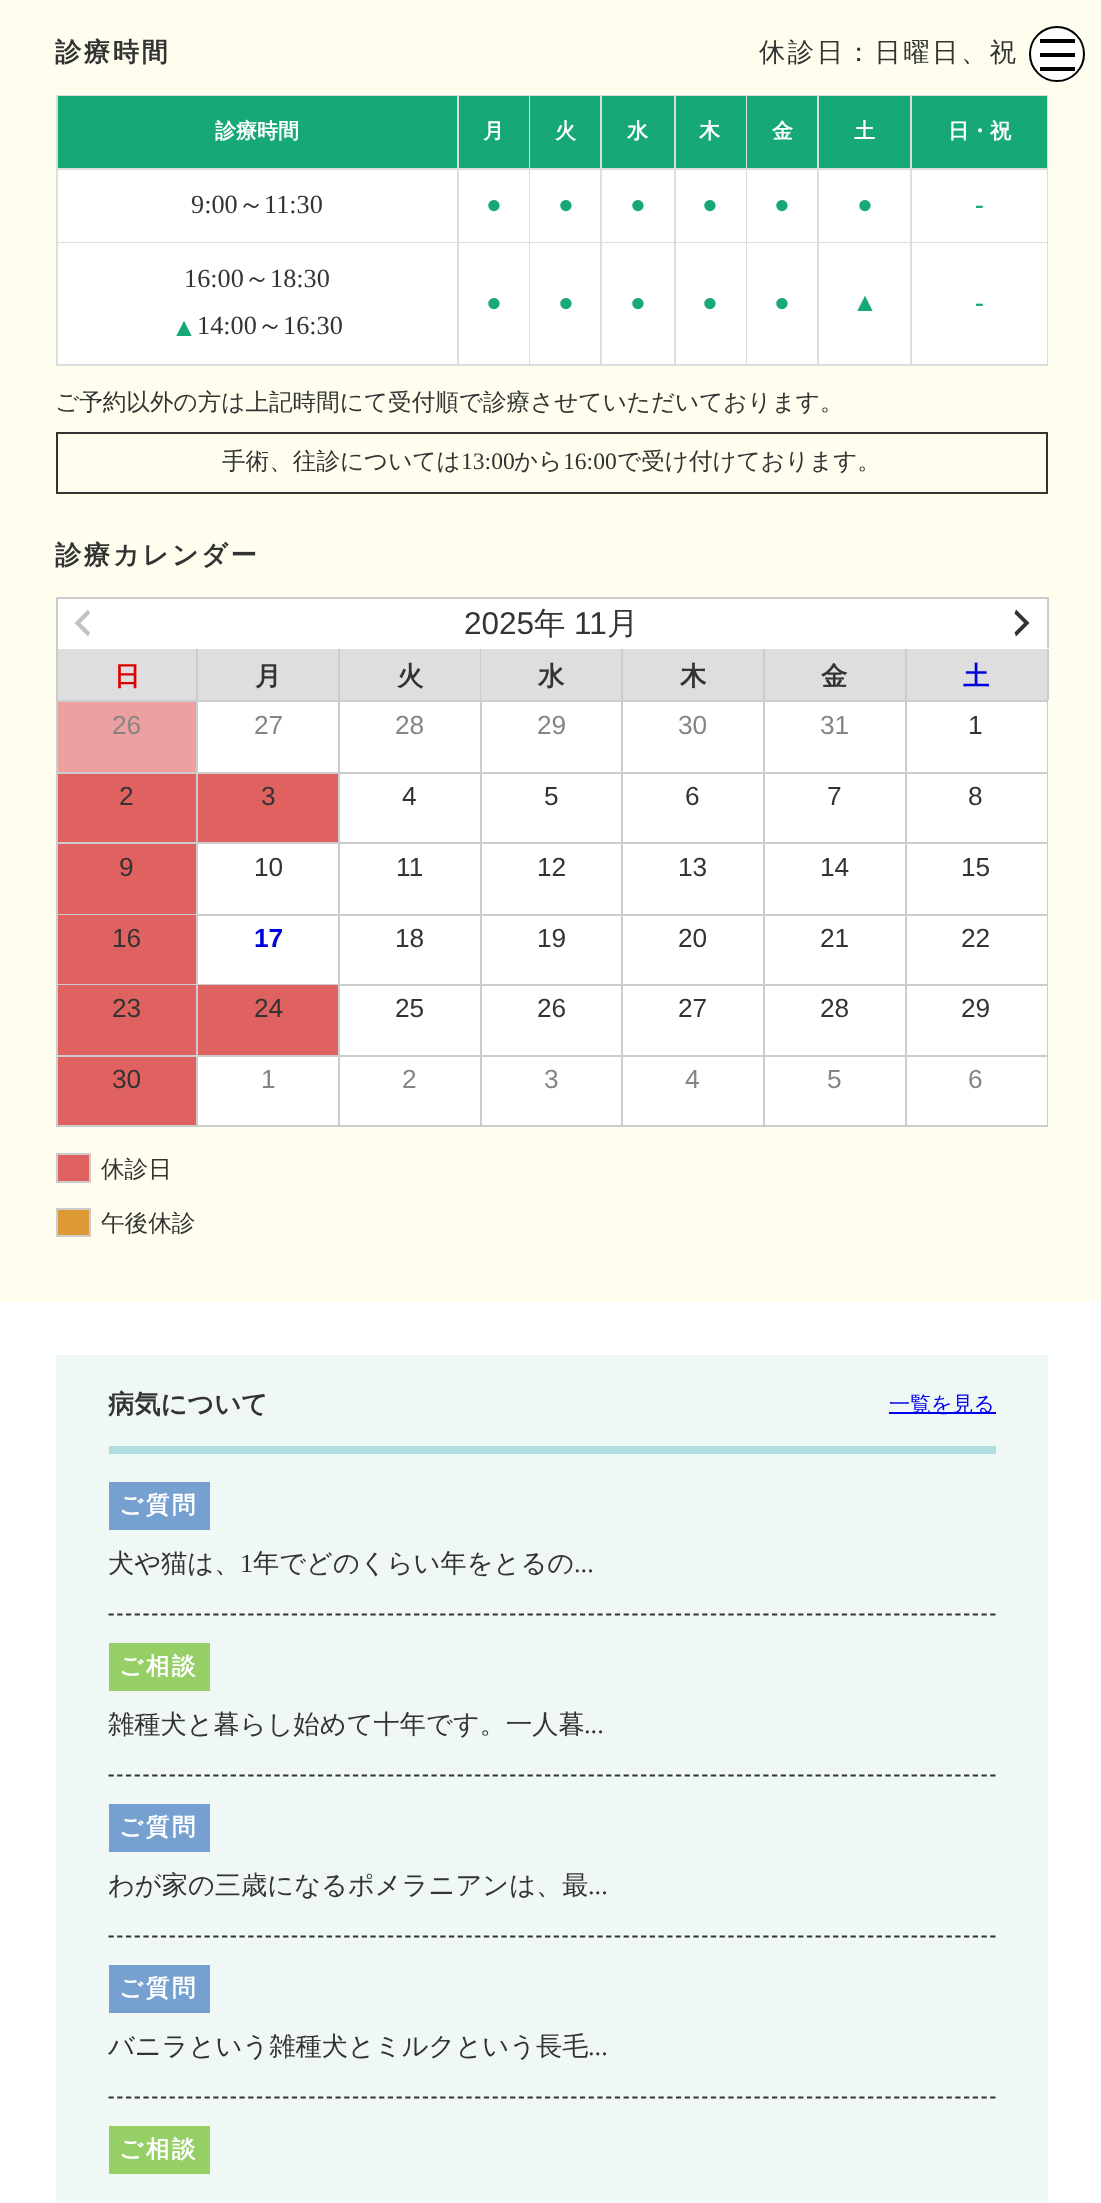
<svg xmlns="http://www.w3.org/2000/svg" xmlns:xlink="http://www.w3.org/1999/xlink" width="1101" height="2203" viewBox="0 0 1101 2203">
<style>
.cls-1{font:bold 26.25px WenQuanYi Zen Hei;letter-spacing:2.6px;fill:#333333}
.cls-2{font:500 26.25px WenQuanYi Zen Hei;letter-spacing:2.6px;fill:#333333}
.cls-3{font:bold 21px WenQuanYi Zen Hei;fill:#ffffff}
.cls-4{font:26.25px Liberation Serif;fill:#333333}
.cls-5{font:500 26.25px WenQuanYi Zen Hei;fill:#333333}
.cls-6{font:bold 26.25px Liberation Serif;fill:#17a975}
.cls-7{font:500 23.6px WenQuanYi Zen Hei;fill:#333333}
.cls-8{font:23.6px Liberation Serif;fill:#333333}
.cls-9{font:31.5px Liberation Sans;fill:#333333}
.cls-10{font:500 31.5px WenQuanYi Zen Hei;fill:#333333}
.cls-11{font:bold 26.25px WenQuanYi Zen Hei;fill:#dd0000}
.cls-12{font:bold 26.25px WenQuanYi Zen Hei;fill:#333333}
.cls-13{font:bold 26.25px WenQuanYi Zen Hei;fill:#0000dd}
.cls-14{font:26.25px Liberation Sans;fill:#858585}
.cls-15{font:26.25px Liberation Sans;fill:#333333}
.cls-16{font:bold 26.25px Liberation Sans;fill:#0000dd}
.cls-17{font:500 21px WenQuanYi Zen Hei;fill:#0000ee}
.cls-18{font:bold 23.6px WenQuanYi Zen Hei;letter-spacing:2.5px;fill:#ffffff}
</style>
<rect width="100%" height="100%" fill="#ffffff"/>
<rect fill="#fffeee" x="0" y="0" width="1101" height="1302"/>
<rect fill="#dcdddd" x="56" y="95" width="992" height="271"/>
<rect fill="#17a975" x="58" y="96" width="399" height="72"/>
<rect fill="#17a975" x="459" y="96" width="70" height="72"/>
<rect fill="#17a975" x="530" y="96" width="70" height="72"/>
<rect fill="#17a975" x="602" y="96" width="72" height="72"/>
<rect fill="#17a975" x="676" y="96" width="70" height="72"/>
<rect fill="#17a975" x="747" y="96" width="70" height="72"/>
<rect fill="#17a975" x="819" y="96" width="91" height="72"/>
<rect fill="#17a975" x="912" y="96" width="135" height="72"/>
<rect fill="#ffffff" x="58" y="170" width="399" height="72"/>
<rect fill="#ffffff" x="459" y="170" width="70" height="72"/>
<rect fill="#ffffff" x="530" y="170" width="70" height="72"/>
<rect fill="#ffffff" x="602" y="170" width="72" height="72"/>
<rect fill="#ffffff" x="676" y="170" width="70" height="72"/>
<rect fill="#ffffff" x="747" y="170" width="70" height="72"/>
<rect fill="#ffffff" x="819" y="170" width="91" height="72"/>
<rect fill="#ffffff" x="912" y="170" width="135" height="72"/>
<rect fill="#ffffff" x="58" y="243" width="399" height="121"/>
<rect fill="#ffffff" x="459" y="243" width="70" height="121"/>
<rect fill="#ffffff" x="530" y="243" width="70" height="121"/>
<rect fill="#ffffff" x="602" y="243" width="72" height="121"/>
<rect fill="#ffffff" x="676" y="243" width="70" height="121"/>
<rect fill="#ffffff" x="747" y="243" width="70" height="121"/>
<rect fill="#ffffff" x="819" y="243" width="91" height="121"/>
<rect fill="#ffffff" x="912" y="243" width="135" height="121"/>
<rect fill="none" stroke="#333333" stroke-width="2" x="57" y="433" width="990" height="60"/>
<rect fill="#ffffff" x="58" y="648" width="990" height="1"/>
<rect fill="#cccccc" x="56" y="1125" width="992" height="2"/>
<rect fill="#cccccc" x="56" y="648" width="2" height="479"/>
<rect fill="#ffffff" x="58" y="599" width="989" height="49"/>
<rect fill="#cccccc" x="56" y="597" width="992" height="2"/>
<rect fill="#cccccc" x="1047" y="597" width="2" height="51"/>
<rect fill="#cccccc" x="56" y="597" width="2" height="51"/>
<path fill="#c2c2c2" d="M90 613.5L80.5 623L90 632.5L88 636.5L74.5 623L88 609.5Z"/>
<path fill="#333333" d="M1014.5 632.5L1024 623L1014.5 613.5L1016 609.5L1029.5 623L1016 636.5Z"/>
<rect fill="#dedede" x="58" y="649" width="138" height="51"/>
<rect fill="#cccccc" x="196" y="649" width="2" height="51"/>
<rect fill="#dedede" x="198" y="649" width="140" height="51"/>
<rect fill="#cccccc" x="338" y="649" width="2" height="51"/>
<rect fill="#dedede" x="340" y="649" width="140" height="51"/>
<rect fill="#cccccc" x="480" y="649" width="1" height="51"/>
<rect fill="#dedede" x="481" y="649" width="140" height="51"/>
<rect fill="#cccccc" x="621" y="649" width="2" height="51"/>
<rect fill="#dedede" x="623" y="649" width="140" height="51"/>
<rect fill="#cccccc" x="763" y="649" width="2" height="51"/>
<rect fill="#dedede" x="765" y="649" width="140" height="51"/>
<rect fill="#cccccc" x="905" y="649" width="2" height="51"/>
<rect fill="#dedede" x="907" y="649" width="140" height="51"/>
<rect fill="#cccccc" x="1047" y="649" width="2" height="51"/>
<rect fill="#ffffff" x="198" y="702" width="849" height="70"/>
<rect fill="#cccccc" x="58" y="700" width="423" height="2"/>
<rect fill="#cccccc" x="196" y="700" width="2" height="72"/>
<rect fill="#eca0a0" x="58" y="702" width="138" height="70"/>
<rect fill="#cccccc" x="338" y="700" width="2" height="72"/>
<rect fill="#cccccc" x="480" y="700" width="2" height="72"/>
<rect fill="#cccccc" x="481" y="700" width="567" height="2"/>
<rect fill="#cccccc" x="621" y="700" width="2" height="72"/>
<rect fill="#cccccc" x="763" y="700" width="2" height="72"/>
<rect fill="#cccccc" x="905" y="700" width="2" height="72"/>
<rect fill="#cccccc" x="1047" y="700" width="1" height="72"/>
<rect fill="#ffffff" x="340" y="774" width="707" height="68"/>
<rect fill="#cccccc" x="58" y="772" width="423" height="2"/>
<rect fill="#cccccc" x="196" y="772" width="2" height="70"/>
<rect fill="#df6160" x="58" y="774" width="138" height="68"/>
<rect fill="#cccccc" x="338" y="772" width="2" height="70"/>
<rect fill="#df6160" x="198" y="774" width="140" height="68"/>
<rect fill="#cccccc" x="480" y="772" width="2" height="70"/>
<rect fill="#cccccc" x="481" y="772" width="567" height="2"/>
<rect fill="#cccccc" x="621" y="772" width="2" height="70"/>
<rect fill="#cccccc" x="763" y="772" width="2" height="70"/>
<rect fill="#cccccc" x="905" y="772" width="2" height="70"/>
<rect fill="#cccccc" x="1047" y="772" width="1" height="70"/>
<rect fill="#ffffff" x="198" y="844" width="849" height="70"/>
<rect fill="#cccccc" x="58" y="842" width="423" height="2"/>
<rect fill="#cccccc" x="196" y="842" width="2" height="72"/>
<rect fill="#df6160" x="58" y="844" width="138" height="70"/>
<rect fill="#cccccc" x="338" y="842" width="2" height="72"/>
<rect fill="#cccccc" x="480" y="842" width="2" height="72"/>
<rect fill="#cccccc" x="481" y="842" width="567" height="2"/>
<rect fill="#cccccc" x="621" y="842" width="2" height="72"/>
<rect fill="#cccccc" x="763" y="842" width="2" height="72"/>
<rect fill="#cccccc" x="905" y="842" width="2" height="72"/>
<rect fill="#cccccc" x="1047" y="842" width="1" height="72"/>
<rect fill="#ffffff" x="198" y="916" width="849" height="68"/>
<rect fill="#cccccc" x="58" y="914" width="140" height="1"/>
<rect fill="#cccccc" x="196" y="914" width="2" height="70"/>
<rect fill="#df6160" x="58" y="915" width="138" height="69"/>
<rect fill="#cccccc" x="198" y="914" width="283" height="2"/>
<rect fill="#cccccc" x="338" y="914" width="2" height="70"/>
<rect fill="#cccccc" x="480" y="914" width="2" height="70"/>
<rect fill="#cccccc" x="481" y="914" width="567" height="2"/>
<rect fill="#cccccc" x="621" y="914" width="2" height="70"/>
<rect fill="#cccccc" x="763" y="914" width="2" height="70"/>
<rect fill="#cccccc" x="905" y="914" width="2" height="70"/>
<rect fill="#cccccc" x="1047" y="914" width="1" height="70"/>
<rect fill="#ffffff" x="340" y="986" width="707" height="69"/>
<rect fill="#cccccc" x="58" y="984" width="282" height="1"/>
<rect fill="#cccccc" x="196" y="984" width="2" height="71"/>
<rect fill="#df6160" x="58" y="985" width="138" height="70"/>
<rect fill="#cccccc" x="338" y="984" width="2" height="71"/>
<rect fill="#df6160" x="198" y="985" width="140" height="70"/>
<rect fill="#cccccc" x="340" y="984" width="141" height="2"/>
<rect fill="#cccccc" x="480" y="984" width="2" height="71"/>
<rect fill="#cccccc" x="481" y="984" width="567" height="2"/>
<rect fill="#cccccc" x="621" y="984" width="2" height="71"/>
<rect fill="#cccccc" x="763" y="984" width="2" height="71"/>
<rect fill="#cccccc" x="905" y="984" width="2" height="71"/>
<rect fill="#cccccc" x="1047" y="984" width="1" height="71"/>
<rect fill="#ffffff" x="198" y="1057" width="849" height="68"/>
<rect fill="#cccccc" x="58" y="1055" width="423" height="2"/>
<rect fill="#cccccc" x="196" y="1055" width="2" height="70"/>
<rect fill="#df6160" x="58" y="1057" width="138" height="68"/>
<rect fill="#cccccc" x="338" y="1055" width="2" height="70"/>
<rect fill="#cccccc" x="480" y="1055" width="2" height="70"/>
<rect fill="#cccccc" x="481" y="1055" width="567" height="2"/>
<rect fill="#cccccc" x="621" y="1055" width="2" height="70"/>
<rect fill="#cccccc" x="763" y="1055" width="2" height="70"/>
<rect fill="#cccccc" x="905" y="1055" width="2" height="70"/>
<rect fill="#cccccc" x="1047" y="1055" width="1" height="70"/>
<rect fill="#df6160" stroke="#cccccc" stroke-width="2" x="57" y="1154" width="33" height="28"/>
<rect fill="#dd9933" stroke="#cccccc" stroke-width="2" x="57" y="1209" width="33" height="27"/>
<rect fill="#f0f8f5" x="56" y="1355" width="992" height="848"/>
<rect fill="#b0ddde" x="109" y="1446" width="887" height="8"/>
<rect fill="#0000ee" x="889" y="1412" width="107" height="2"/>
<path fill="none" stroke="#333333" stroke-width="1.8" stroke-dasharray="5.25 3.48" d="M108.5 1614.5H996"/>
<rect fill="#75a0d0" x="109" y="1482" width="101" height="48"/>
<path fill="none" stroke="#333333" stroke-width="1.8" stroke-dasharray="5.25 3.48" d="M108.5 1775.5H996"/>
<rect fill="#95cf65" x="109" y="1643" width="101" height="48"/>
<path fill="none" stroke="#333333" stroke-width="1.8" stroke-dasharray="5.25 3.48" d="M108.5 1936.5H996"/>
<rect fill="#75a0d0" x="109" y="1804" width="101" height="48"/>
<path fill="none" stroke="#333333" stroke-width="1.8" stroke-dasharray="5.25 3.48" d="M108.5 2097.5H996"/>
<rect fill="#75a0d0" x="109" y="1965" width="101" height="48"/>
<rect fill="#95cf65" x="109" y="2126" width="101" height="48"/>
<circle fill="#ffffff" stroke="#000000" stroke-width="2" cx="1057" cy="54" r="27"/>
<rect fill="#000000" x="1040" y="39" width="35" height="4"/>
<rect fill="#000000" x="1040" y="53" width="35" height="4"/>
<rect fill="#000000" x="1040" y="67" width="35" height="4"/>
<text class="cls-1" x="55" y="61">診療時間</text>
<text class="cls-2" x="759" y="61">休診日：日曜日、祝</text>
<text class="cls-3" x="215" y="138">診療時間</text>
<text class="cls-3" x="483" y="138">月</text>
<text class="cls-3" x="555" y="138">火</text>
<text class="cls-3" x="627" y="138">水</text>
<text class="cls-3" x="699" y="138">木</text>
<text class="cls-3" x="772" y="138">金</text>
<text class="cls-3" x="854" y="138">土</text>
<text class="cls-3" x="948" y="138">日・祝</text>
<text class="cls-4" x="191" y="213">9:00</text>
<text class="cls-5" x="238" y="213">～</text>
<text class="cls-4" x="264" y="213">11:30</text>
<text class="cls-6" x="486" y="213">●</text>
<text class="cls-6" x="558" y="213">●</text>
<text class="cls-6" x="630" y="213">●</text>
<text class="cls-6" x="702" y="213">●</text>
<text class="cls-6" x="774" y="213">●</text>
<text class="cls-6" x="857" y="213">●</text>
<text class="cls-6" x="975" y="213">-</text>
<text class="cls-4" x="184" y="287">16:00</text>
<text class="cls-5" x="244" y="287">～</text>
<text class="cls-4" x="270" y="287">18:30</text>
<text class="cls-6" x="171" y="336">▲</text>
<text class="cls-4" x="197" y="334">14:00</text>
<text class="cls-5" x="257" y="334">～</text>
<text class="cls-4" x="283" y="334">16:30</text>
<text class="cls-6" x="486" y="311">●</text>
<text class="cls-6" x="558" y="311">●</text>
<text class="cls-6" x="630" y="311">●</text>
<text class="cls-6" x="702" y="311">●</text>
<text class="cls-6" x="774" y="311">●</text>
<text class="cls-6" x="852" y="311">▲</text>
<text class="cls-6" x="975" y="311">-</text>
<text class="cls-7" x="55" y="410">ご予約以外の方は上記時間にて受付順で診療させていただいております。</text>
<text class="cls-7" x="222" y="469">手術、往診については</text>
<text class="cls-8" x="461" y="469">13:00</text>
<text class="cls-7" x="514" y="469">から</text>
<text class="cls-8" x="563" y="469">16:00</text>
<text class="cls-7" x="617" y="469">で受け付けております。</text>
<text class="cls-1" x="55" y="564">診療カレンダー</text>
<text class="cls-9" x="464" y="634">2025</text>
<text class="cls-10" x="534" y="634">年</text>
<text class="cls-9" x="574" y="634">11</text>
<text class="cls-10" x="607" y="634">月</text>
<text class="cls-11" x="114" y="685">日</text>
<text class="cls-12" x="255" y="685">月</text>
<text class="cls-12" x="397" y="685">火</text>
<text class="cls-12" x="538" y="685">水</text>
<text class="cls-12" x="680" y="685">木</text>
<text class="cls-12" x="821" y="685">金</text>
<text class="cls-13" x="963" y="685">土</text>
<text class="cls-14" x="112" y="734">26</text>
<text class="cls-14" x="254" y="734">27</text>
<text class="cls-14" x="395" y="734">28</text>
<text class="cls-14" x="537" y="734">29</text>
<text class="cls-14" x="678" y="734">30</text>
<text class="cls-14" x="820" y="734">31</text>
<text class="cls-15" x="968" y="734">1</text>
<text class="cls-15" x="119" y="805">2</text>
<text class="cls-15" x="261" y="805">3</text>
<text class="cls-15" x="402" y="805">4</text>
<text class="cls-15" x="544" y="805">5</text>
<text class="cls-15" x="685" y="805">6</text>
<text class="cls-15" x="827" y="805">7</text>
<text class="cls-15" x="968" y="805">8</text>
<text class="cls-15" x="119" y="876">9</text>
<text class="cls-15" x="254" y="876">10</text>
<text class="cls-15" x="396" y="876">11</text>
<text class="cls-15" x="537" y="876">12</text>
<text class="cls-15" x="678" y="876">13</text>
<text class="cls-15" x="820" y="876">14</text>
<text class="cls-15" x="961" y="876">15</text>
<text class="cls-15" x="112" y="947">16</text>
<text class="cls-16" x="254" y="947">17</text>
<text class="cls-15" x="395" y="947">18</text>
<text class="cls-15" x="537" y="947">19</text>
<text class="cls-15" x="678" y="947">20</text>
<text class="cls-15" x="820" y="947">21</text>
<text class="cls-15" x="961" y="947">22</text>
<text class="cls-15" x="112" y="1017">23</text>
<text class="cls-15" x="254" y="1017">24</text>
<text class="cls-15" x="395" y="1017">25</text>
<text class="cls-15" x="537" y="1017">26</text>
<text class="cls-15" x="678" y="1017">27</text>
<text class="cls-15" x="820" y="1017">28</text>
<text class="cls-15" x="961" y="1017">29</text>
<text class="cls-15" x="112" y="1088">30</text>
<text class="cls-14" x="261" y="1088">1</text>
<text class="cls-14" x="402" y="1088">2</text>
<text class="cls-14" x="544" y="1088">3</text>
<text class="cls-14" x="685" y="1088">4</text>
<text class="cls-14" x="827" y="1088">5</text>
<text class="cls-14" x="968" y="1088">6</text>
<text class="cls-7" x="101" y="1177">休診日</text>
<text class="cls-7" x="101" y="1231">午後休診</text>
<text class="cls-12" x="108" y="1413">病気について</text>
<text class="cls-17" x="889" y="1411">一覧を見る</text>
<text class="cls-18" x="119" y="1513">ご質問</text>
<text class="cls-5" x="108" y="1572">犬や猫は、</text>
<text class="cls-4" x="240" y="1572">1</text>
<text class="cls-5" x="253" y="1572">年でどのくらい年をとるの</text>
<text class="cls-4" x="574" y="1572">...</text>
<text class="cls-18" x="119" y="1674">ご相談</text>
<text class="cls-5" x="108" y="1733">雑種犬と暮らし始めて十年です。一人暮</text>
<text class="cls-4" x="584" y="1733">...</text>
<text class="cls-18" x="119" y="1835">ご質問</text>
<text class="cls-5" x="108" y="1894">わが家の三歳になるポメラニアンは、最</text>
<text class="cls-4" x="588" y="1894">...</text>
<text class="cls-18" x="119" y="1996">ご質問</text>
<text class="cls-5" x="108" y="2055">バニラという雑種犬とミルクという長毛</text>
<text class="cls-4" x="588" y="2055">...</text>
<text class="cls-18" x="119" y="2157">ご相談</text>
</svg>
